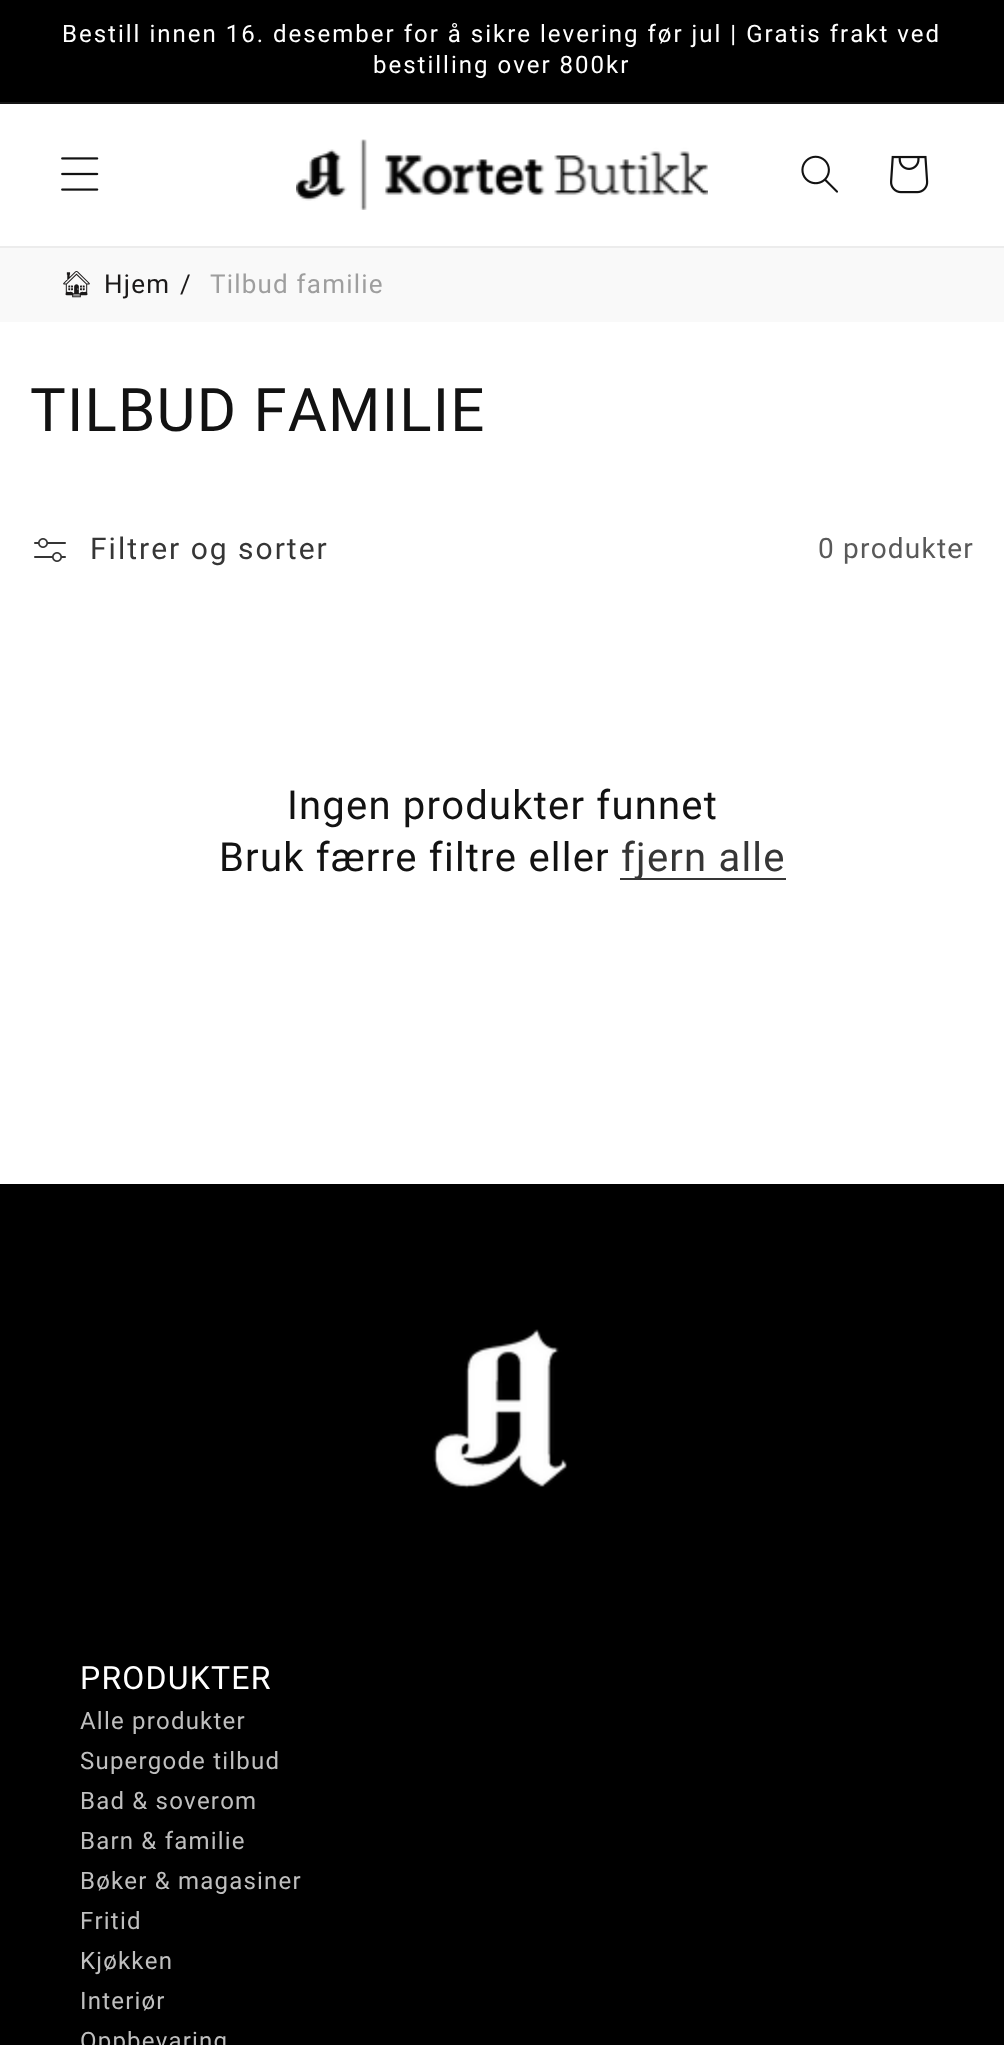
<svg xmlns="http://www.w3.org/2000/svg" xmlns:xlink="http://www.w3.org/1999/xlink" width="1004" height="2045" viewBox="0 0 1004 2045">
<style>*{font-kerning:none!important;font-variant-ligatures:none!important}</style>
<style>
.cls-1{font:24px Roboto;letter-spacing:2px;fill:#ffffff}
.cls-2{font:26px Noto Emoji;letter-spacing:1.2px;fill:#1b1919}
.cls-3{font:26px Roboto;letter-spacing:1.2px;fill:#1b1919}
.cls-4{font:26px Roboto;letter-spacing:1.2px;fill:#9e9e9e}
.cls-5{font:60px Roboto;letter-spacing:1.2px;fill:#121212}
.cls-6{font:30px Roboto;letter-spacing:2px;fill:#363636}
.cls-7{font:28px Roboto;letter-spacing:1.2px;fill:#595959}
.cls-8{font:40px Roboto;letter-spacing:1.2px;fill:#121212}
.cls-9{font:40px Roboto;letter-spacing:1.2px;fill:#363636}
.cls-10{font:32px Roboto;letter-spacing:1.2px;fill:#ffffff}
.cls-11{font:24px Roboto;letter-spacing:1.2px;fill:#bfbfbf}
</style>
<rect width="100%" height="100%" fill="#ffffff"/>
<rect fill="#000000" x="0" y="0" width="1004" height="102"/>
<rect fill="#141414" x="0" y="102" width="1004" height="2"/>
<rect fill="#ececec" x="0" y="246" width="1004" height="2"/>
<image xlink:href="image0.png" x="61" y="157" width="38" height="34"/>
<image xlink:href="image1.png" x="296" y="139" width="412" height="71"/>
<image xlink:href="image2.png" x="801" y="155" width="37" height="38"/>
<image xlink:href="image3.png" x="890" y="155" width="39" height="39"/>
<rect fill="#f9f9f9" x="0" y="248" width="1004" height="74"/>
<image xlink:href="image4.png" x="34" y="538" width="32" height="24"/>
<rect fill="#363636" x="620" y="878" width="166" height="2"/>
<rect fill="#000000" x="0" y="1184" width="1004" height="861"/>
<image xlink:href="image5.png" x="433" y="1329" width="134" height="160"/>
<text class="cls-1" x="62" y="42">Bestill innen 16. desember for å sikre levering før jul | Gratis frakt ved</text>
<text class="cls-1" x="373" y="73">bestilling over 800kr</text>
<text class="cls-2" x="60" y="293">🏠︎</text>
<text class="cls-3" x="104" y="293">Hjem</text>
<text class="cls-3" x="180" y="293">/</text>
<text class="cls-4" x="210" y="293">Tilbud familie</text>
<text class="cls-5" x="30" y="431">TILBUD FAMILIE</text>
<text class="cls-6" x="90" y="559">Filtrer og sorter</text>
<text class="cls-7" x="818" y="558">0 produkter</text>
<text class="cls-8" x="287" y="819">Ingen produkter funnet</text>
<text class="cls-8" x="219" y="871">Bruk færre filtre eller</text>
<text class="cls-9" x="621" y="871">fjern alle</text>
<text class="cls-10" x="80" y="1689">PRODUKTER</text>
<text class="cls-11"><tspan x="80" y="1729">Alle produkter</tspan><tspan x="80" y="1769">Supergode tilbud</tspan><tspan x="80" y="1809">Bad &amp; soverom</tspan><tspan x="80" y="1849">Barn &amp; familie</tspan><tspan x="80" y="1889">Bøker &amp; magasiner</tspan><tspan x="80" y="1929">Fritid</tspan><tspan x="80" y="1969">Kjøkken</tspan><tspan x="80" y="2009">Interiør</tspan><tspan x="80" y="2049">Oppbevaring</tspan></text>
</svg>
